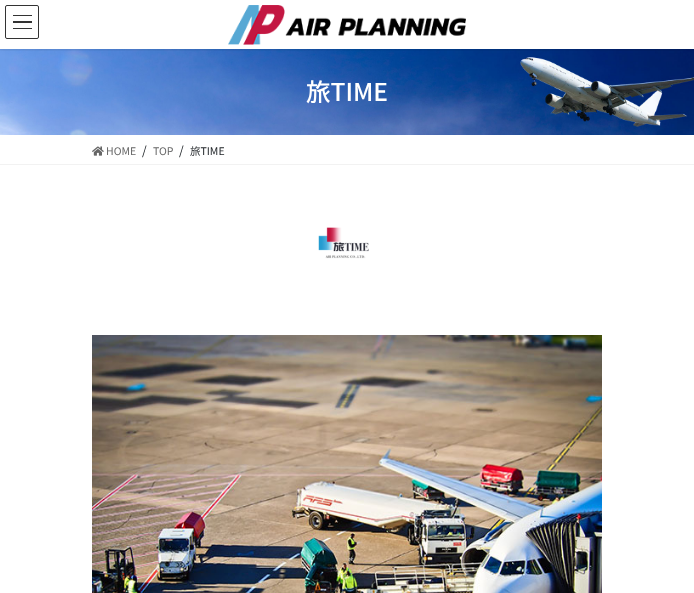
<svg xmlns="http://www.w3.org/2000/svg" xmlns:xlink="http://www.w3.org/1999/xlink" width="694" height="593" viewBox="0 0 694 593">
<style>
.cls-1{font:500 24.5px Noto Sans JP;fill:#ffffff}
.cls-2{font:10.5px Noto Sans JP;fill:#666666}
.cls-3{font:12px Noto Sans JP;fill:#212529}
.cls-4{font:10.5px Noto Sans JP;fill:#212529}
</style>
<defs>
<clipPath id="clip1"><rect x="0" y="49" width="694" height="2"/></clipPath>
</defs>
<rect width="100%" height="100%" fill="#ffffff"/>
<image xlink:href="image1.png" x="0" y="49" width="694" height="86"/>
<g clip-path="url(#clip1)">
<rect fill="#000000" fill-opacity="0.1" filter="blur(1.5px)" x="0" y="1" width="694" height="49"/>
</g>
<image xlink:href="image0.png" x="228" y="5" width="238" height="40"/>
<rect fill="#333333" x="13" y="15" width="19" height="1"/>
<rect fill="#333333" x="13" y="21" width="19" height="2"/>
<rect fill="#333333" x="13" y="28" width="19" height="1"/>
<rect fill="none" stroke="#333333" x="5.5" y="5.5" width="33" height="33" rx="1.5"/>
<rect fill="#f2f2f2" x="0" y="164" width="694" height="1"/>
<image xlink:href="image2.png" x="92" y="146" width="12" height="10"/>
<image xlink:href="image3.png" x="318" y="227" width="51" height="32"/>
<image xlink:href="image4.png" x="92" y="335" width="510" height="258"/>
<text class="cls-1" x="306" y="101">旅TIME</text>
<text class="cls-2" x="106" y="155">HOME</text>
<text class="cls-3" x="142" y="155">/</text>
<text class="cls-2" x="153" y="155">TOP</text>
<text class="cls-3" x="179" y="155">/</text>
<text class="cls-4" x="190" y="155">旅TIME</text>
</svg>
